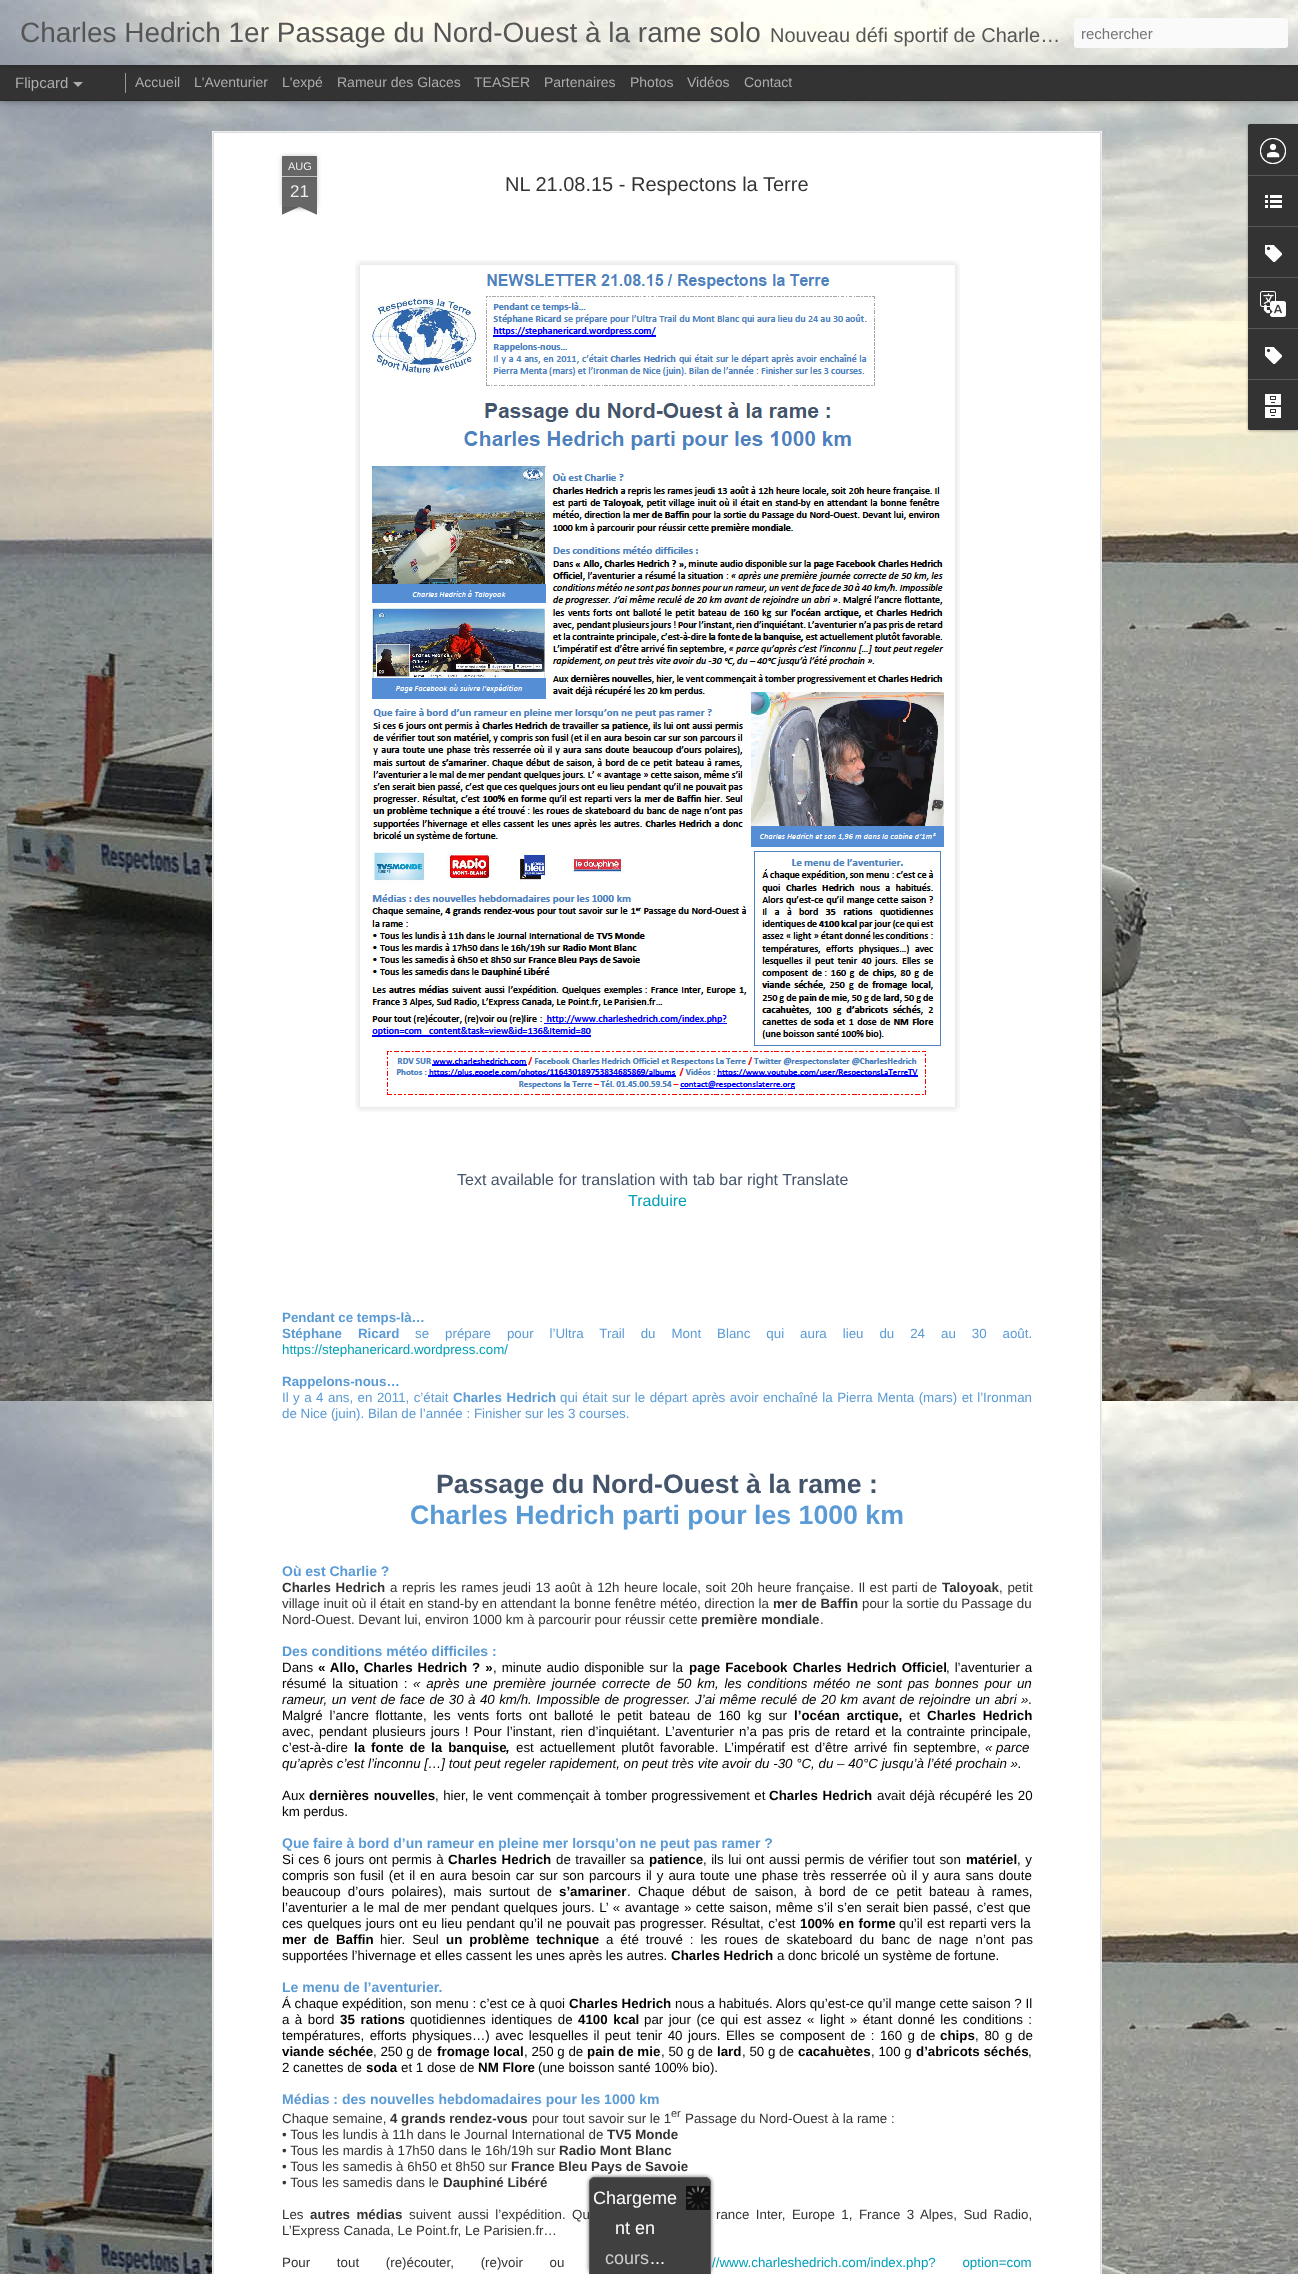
<svg xmlns="http://www.w3.org/2000/svg" xmlns:xlink="http://www.w3.org/1999/xlink" width="1298" height="2274" viewBox="0 0 1298 2274">
<style>
.cls-1{font:28px Liberation Sans;fill:#555555}
.cls-2{font:20px Liberation Sans;fill:#555555}
.cls-3{font:15px Liberation Sans;fill:#757575}
.cls-4{font:15px Liberation Sans;fill:#adadad}
.cls-5{font:14px Liberation Sans;fill:#adadad}
.cls-6{font:11px Liberation Sans;fill:#eeeeee}
.cls-7{font:17px Liberation Sans;fill:#eeeeee}
.cls-8{font:20px Liberation Sans;fill:#333333}
.cls-9{font:16px Liberation Sans;fill:#44546a}
.cls-10{font:16px Liberation Sans;fill:#009eb8}
.cls-11{font:bold 13.33px Liberation Sans;fill:#5b9bd5}
.cls-12{font:13.33px Liberation Sans;fill:#5b9bd5}
.cls-13{font:13.33px Liberation Sans;fill:#009eb8}
.cls-14{font:bold 26.7px Liberation Sans;fill:#44546a}
.cls-15{font:bold 26.7px Liberation Sans;fill:#5b9bd5}
.cls-16{font:bold 14px Liberation Sans;fill:#5b9bd5}
.cls-17{font:bold 13.33px Liberation Sans;fill:#333333}
.cls-18{font:13.33px Liberation Sans;fill:#333333}
.cls-19{font:13.33px Liberation Sans;fill:#000000}
.cls-20{font:bold 13.33px Liberation Sans;fill:#000000}
.cls-21{font:italic 13.33px Liberation Sans;fill:#000000}
.cls-22{font:italic bold 13.33px Liberation Sans;fill:#000000}
.cls-23{font:11px Liberation Sans;fill:#333333}
.cls-24{font:18px Liberation Sans;fill:#ffffff}
.cls-25{font:18px Liberation Sans;fill:#cecece}
</style>
<defs>
<clipPath id="clip1"><rect x="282" y="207" width="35" height="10"/></clipPath>
<clipPath id="clip2"><rect x="282" y="207" width="35" height="10"/></clipPath>
<clipPath id="clip3"><path d="M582 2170H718V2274H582ZM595 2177H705C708.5 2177 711 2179.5 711 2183V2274H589V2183C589 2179.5 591.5 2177 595 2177Z" clip-rule="evenodd"/></clipPath>
</defs>
<rect width="100%" height="100%" fill="#333333"/>
<image xlink:href="image1.png" x="0" y="101" width="1298" height="2173"/>
<rect fill="#000000" fill-opacity="0.5" filter="blur(4px)" x="0" y="65" width="1298" height="35"/>
<rect fill="#333333" x="0" y="65" width="1298" height="35"/>
<rect fill="#999999" x="125" y="73" width="1" height="20"/>
<rect fill="#000000" fill-opacity="0.3" filter="blur(2.5px)" x="0" y="0" width="1298" height="65"/>
<image xlink:href="image0.png" x="0" y="0" width="1298" height="65"/>
<rect fill="#fafafa" x="1074" y="18" width="214" height="30" rx="3"/>
<path fill="#adadad" d="M73 82H83L78 87Z"/>
<rect fill="#ffffff" x="212" y="131" width="890" height="2143"/>
<image xlink:href="image2.png" x="212" y="131" width="890" height="2143"/>
<rect fill="#000000" fill-opacity="0.2" filter="blur(2.5px)" x="282" y="177" width="35" height="30"/>
<rect fill="#666666" x="282" y="177" width="35" height="30"/>
<rect fill="#000000" fill-opacity="0.2" filter="blur(2.5px)" x="282" y="156" width="35" height="21" rx="1"/>
<path fill="#666666" d="M283 156H316C316.5 156 317 156.5 317 157V177H282V157C282 156.5 282.5 156 283 156Z"/>
<rect fill="#c2c2c2" x="282" y="176" width="35" height="1"/>
<g clip-path="url(#clip1)">
<rect fill="#000000" fill-opacity="0.2" filter="blur(2.5px)" x="273" y="197" width="50" height="10"/>
</g>
<g clip-path="url(#clip2)">
<path fill="#666666" d="M273 208L319 187L323 196L277 217Z"/>
</g>
<g clip-path="url(#clip1)">
<rect fill="#000000" fill-opacity="0.2" filter="blur(2.5px)" x="276" y="197" width="50" height="10"/>
</g>
<g clip-path="url(#clip2)">
<path fill="#666666" d="M280 187L326 208L322 217L276 196Z"/>
</g>
<image xlink:href="image3.png" x="355" y="260" width="605" height="852"/>
<rect fill="#000000" fill-opacity="0.3" filter="blur(1.5px)" x="1248" y="125" width="50" height="306" rx="2"/>
<path fill="#333333" d="M1250 124H1298V430H1250C1249 430 1248 429 1248 428V126C1248 125 1249 124 1250 124Z"/>
<path fill="#333333" d="M1250 124H1298V175H1248V126C1248 125 1249 124 1250 124Z"/>
<image xlink:href="image4.png" x="1260" y="138" width="26" height="26"/>
<rect fill="#585858" x="1248" y="175" width="50" height="1"/>
<image xlink:href="image5.png" x="1265" y="195" width="17" height="13"/>
<rect fill="#585858" x="1248" y="226" width="50" height="1"/>
<image xlink:href="image6.png" x="1265" y="245" width="17" height="17"/>
<rect fill="#585858" x="1248" y="277" width="50" height="1"/>
<image xlink:href="image7.png" x="1260" y="291" width="26" height="26"/>
<rect fill="#585858" x="1248" y="328" width="50" height="1"/>
<image xlink:href="image6.png" x="1265" y="347" width="17" height="17"/>
<path fill="#333333" d="M1248 379H1298V430H1250C1249 430 1248 429 1248 428Z"/>
<rect fill="#585858" x="1248" y="379" width="50" height="1"/>
<image xlink:href="image8.png" x="1265" y="394" width="16" height="24"/>
<g clip-path="url(#clip3)">
<rect fill="#333333" fill-opacity="0.75" filter="blur(2px)" x="589" y="2177" width="122" height="97" rx="6"/>
</g>
<path fill="#000000" fill-opacity="0.75" d="M595 2177H705C708.5 2177 711 2179.5 711 2183V2274H589V2183C589 2179.5 591.5 2177 595 2177Z"/>
<path fill="#666666" fill-opacity="0.75" fill-rule="evenodd" d="M595 2177H705C708 2177 711 2180 711 2183V2274H589V2183C589 2180 592 2177 595 2177ZM595 2178H705C708 2178 710 2180 710 2183V2274H590V2183C590 2180 592 2178 595 2178Z"/>
<image xlink:href="image9.png" x="686" y="2186" width="24" height="24"/>
<text class="cls-1" x="20" y="42">Charles Hedrich 1er Passage du Nord-Ouest à la rame solo</text>
<text class="cls-2" x="770" y="42">Nouveau défi sportif de Charle…</text>
<text class="cls-3" x="1081" y="39">rechercher</text>
<text class="cls-4" x="15" y="88">Flipcard</text>
<text class="cls-5" x="135" y="87">Accueil</text>
<text class="cls-5" x="194" y="87">L'Aventurier</text>
<text class="cls-5" x="282" y="87">L'expé</text>
<text class="cls-5" x="337" y="87">Rameur des Glaces</text>
<text class="cls-5" x="474" y="87">TEASER</text>
<text class="cls-5" x="544" y="87">Partenaires</text>
<text class="cls-5" x="630" y="87">Photos</text>
<text class="cls-5" x="687" y="87">Vidéos</text>
<text class="cls-5" x="744" y="87">Contact</text>
<text class="cls-6" x="288" y="170">AUG</text>
<text class="cls-7" x="290" y="197">21</text>
<text class="cls-8" x="505" y="191">NL 21.08.15 - Respectons la Terre</text>
<text class="cls-9" x="457" y="1185">Text available for translation with tab bar right Translate</text>
<text class="cls-10" x="628" y="1206">Traduire</text>
<text class="cls-11"><tspan x="282" y="1322">Pendant ce temps-là…</tspan><tspan x="282" y="1338" word-spacing="12.25">Stéphane Ricard</tspan></text>
<text class="cls-12" x="415" y="1338" word-spacing="12.25">se prépare pour l’Ultra Trail du Mont Blanc qui aura lieu du 24 au 30 août.</text>
<text class="cls-13" x="282" y="1354">https://stephanericard.wordpress.com/</text>
<text class="cls-11" x="282" y="1386">Rappelons-nous…</text>
<text class="cls-12" x="282" y="1402" word-spacing="0.75">Il y a 4 ans, en 2011, c’était</text>
<text class="cls-11" x="453" y="1402" word-spacing="1">Charles Hedrich</text>
<text class="cls-12" x="560" y="1402" word-spacing="0.75">qui était sur le départ après avoir enchaîné la Pierra Menta (mars) et l’Ironman</text>
<text class="cls-12" x="282" y="1418">de Nice (juin). Bilan de l’année : Finisher sur les 3 courses.</text>
<text class="cls-14" x="436" y="1493">Passage du Nord-Ouest à la rame :</text>
<text class="cls-15" x="410" y="1524">Charles Hedrich parti pour les 1000 km</text>
<text class="cls-16" x="282" y="1576">Où est Charlie ?</text>
<text class="cls-17" x="282" y="1592" word-spacing="1">Charles Hedrich</text>
<text class="cls-18" x="390" y="1592" word-spacing="0.8">a repris les rames jeudi 13 août à 12h heure locale, soit 20h heure française. Il est parti de</text>
<text class="cls-17" x="942" y="1592">Taloyoak</text>
<text class="cls-18" x="999" y="1592" word-spacing="1">, petit</text>
<text class="cls-18" x="282" y="1608">village inuit où il était en stand-by en attendant la bonne fenêtre météo, direction la</text>
<text class="cls-17" x="773" y="1608">mer de Baffin</text>
<text class="cls-18" x="862" y="1608">pour la sortie du Passage du</text>
<text class="cls-18" x="282" y="1624">Nord-Ouest. Devant lui, environ 1000 km à parcourir pour réussir cette</text>
<text class="cls-17" x="701" y="1624">première mondiale</text>
<text class="cls-18" x="820" y="1624">.</text>
<text class="cls-16" x="282" y="1656">Des conditions météo difficiles :</text>
<text class="cls-19" x="282" y="1672">Dans</text>
<text class="cls-20" x="318" y="1672" word-spacing="1.25">« Allo, Charles Hedrich ? »</text>
<text class="cls-19" x="493" y="1672" word-spacing="1.25">, minute audio disponible sur la</text>
<text class="cls-20" x="689" y="1672" word-spacing="1.5">page Facebook Charles Hedrich Officiel</text>
<text class="cls-19" x="946" y="1672" word-spacing="1.25">, l’aventurier a</text>
<text class="cls-19" x="282" y="1688" word-spacing="2.1">résumé la situation :</text>
<text class="cls-21" x="413" y="1688" word-spacing="2.1">« après une première journée correcte de 50 km, les conditions météo ne sont pas bonnes pour un</text>
<text class="cls-21" x="282" y="1704" word-spacing="0.75">rameur, un vent de face de 30 à 40 km/h. Impossible de progresser. J’ai même reculé de 20 km avant de rejoindre un abri »</text>
<text class="cls-19" x="1028" y="1704">.</text>
<text class="cls-19" x="282" y="1720" word-spacing="3.1">Malgré l’ancre flottante, les vents forts ont balloté le petit bateau de 160 kg sur</text>
<text class="cls-20" x="794" y="1720" word-spacing="3.1">l’océan arctique,</text>
<text class="cls-19" x="909" y="1720">et</text>
<text class="cls-20" x="927" y="1720" word-spacing="3.1">Charles Hedrich</text>
<text class="cls-19"><tspan x="282" y="1736" word-spacing="1.4">avec, pendant plusieurs jours ! Pour l’instant, rien d’inquiétant. L’aventurier n’a pas pris de retard et la contrainte principale,</tspan><tspan x="282" y="1752">c’est-à-dire</tspan></text>
<text class="cls-20" x="354" y="1752" word-spacing="2.25">la fonte de la banquise</text>
<text class="cls-22" x="506" y="1752">,</text>
<text class="cls-19" x="516" y="1752" word-spacing="2.25">est actuellement plutôt favorable. L’impératif est d’être arrivé fin septembre,</text>
<text class="cls-21" x="985" y="1752">« parce</text>
<text class="cls-21" x="282" y="1768">qu’après c’est l’inconnu […] tout peut regeler rapidement, on peut très vite avoir du -30 °C, du – 40°C jusqu’à l’été prochain ».</text>
<text class="cls-19" x="282" y="1800">Aux</text>
<text class="cls-20" x="309" y="1800" word-spacing="1">dernières nouvelles</text>
<text class="cls-19" x="435" y="1800" word-spacing="0.75">, hier, le vent commençait à tomber progressivement et</text>
<text class="cls-20" x="769" y="1800" word-spacing="1">Charles Hedrich</text>
<text class="cls-19" x="877" y="1800" word-spacing="0.75">avait déjà récupéré les 20</text>
<text class="cls-19" x="282" y="1816">km perdus.</text>
<text class="cls-16" x="282" y="1848">Que faire à bord d’un rameur en pleine mer lorsqu’on ne peut pas ramer ?</text>
<text class="cls-19" x="282" y="1864" word-spacing="0.75">Si ces 6 jours ont permis à</text>
<text class="cls-20" x="448" y="1864" word-spacing="1">Charles Hedrich</text>
<text class="cls-19" x="556" y="1864" word-spacing="0.75">de travailler sa</text>
<text class="cls-20" x="649" y="1864">patience</text>
<text class="cls-19" x="703" y="1864" word-spacing="0.75">, ils lui ont aussi permis de vérifier tout son</text>
<text class="cls-20" x="966" y="1864">matériel</text>
<text class="cls-19" x="1017" y="1864" word-spacing="0.8">, y</text>
<text class="cls-19"><tspan x="282" y="1880" word-spacing="1.25">compris son fusil (et il en aura besoin car sur son parcours il y aura toute une phase très resserrée où il y aura sans doute</tspan><tspan x="282" y="1896" word-spacing="3.6">beaucoup d’ours polaires), mais surtout de</tspan></text>
<text class="cls-20" x="559" y="1896">s’amariner</text>
<text class="cls-19" x="627" y="1896" word-spacing="3.6">. Chaque début de saison, à bord de ce petit bateau à rames,</text>
<text class="cls-19"><tspan x="282" y="1912" word-spacing="0.75">l’aventurier a le mal de mer pendant quelques jours. L’ « avantage » cette saison, même s’il s’en serait bien passé, c’est que</tspan><tspan x="282" y="1928" word-spacing="0.75">ces quelques jours ont eu lieu pendant qu’il ne pouvait pas progresser. Résultat, c’est</tspan></text>
<text class="cls-20" x="800" y="1928" word-spacing="0.75">100% en forme</text>
<text class="cls-19" x="899" y="1928" word-spacing="0.5">qu’il est reparti vers la</text>
<text class="cls-20" x="282" y="1944" word-spacing="3.25">mer de Baffin</text>
<text class="cls-19" x="380" y="1944" word-spacing="3.25">hier. Seul</text>
<text class="cls-20" x="446" y="1944" word-spacing="3.25">un problème technique</text>
<text class="cls-19" x="606" y="1944" word-spacing="3.25">a été trouvé : les roues de skateboard du banc de nage n’ont pas</text>
<text class="cls-19" x="282" y="1960">supportées l’hivernage et elles cassent les unes après les autres.</text>
<text class="cls-20" x="671" y="1960">Charles Hedrich</text>
<text class="cls-19" x="777" y="1960">a donc bricolé un système de fortune.</text>
<text class="cls-16" x="282" y="1992">Le menu de l’aventurier.</text>
<text class="cls-19" x="282" y="2008">Á chaque expédition, son menu : c’est ce à quoi</text>
<text class="cls-20" x="569" y="2008">Charles Hedrich</text>
<text class="cls-19" x="675" y="2008">nous a habitués. Alors qu’est-ce qu’il mange cette saison ? Il</text>
<text class="cls-19" x="282" y="2024" word-spacing="1.75">a à bord</text>
<text class="cls-20" x="340" y="2024" word-spacing="2">35 rations</text>
<text class="cls-19" x="410" y="2024" word-spacing="2">quotidiennes identiques de</text>
<text class="cls-20" x="578" y="2024" word-spacing="2">4100 kcal</text>
<text class="cls-19" x="644" y="2024" word-spacing="1.75">par jour (ce qui est assez « light » étant donné les conditions :</text>
<text class="cls-19" x="282" y="2040" word-spacing="1.75">températures, efforts physiques…) avec lesquelles il peut tenir 40 jours. Elles se composent de : 160 g de</text>
<text class="cls-20" x="940" y="2040">chips</text>
<text class="cls-19" x="975" y="2040" word-spacing="2">, 80 g de</text>
<text class="cls-20" x="282" y="2056">viande séchée</text>
<text class="cls-19" x="373" y="2056">, 250 g de</text>
<text class="cls-20" x="437" y="2056">fromage local</text>
<text class="cls-19" x="524" y="2056">, 250 g de</text>
<text class="cls-20" x="587" y="2056">pain de mie</text>
<text class="cls-19" x="661" y="2056">, 50 g de</text>
<text class="cls-20" x="717" y="2056">lard</text>
<text class="cls-19" x="742" y="2056">, 50 g de</text>
<text class="cls-20" x="798" y="2056">cacahuètes</text>
<text class="cls-19" x="871" y="2056">, 100 g</text>
<text class="cls-20" x="916" y="2056">d’abricots séchés</text>
<text class="cls-19" x="1028" y="2056">,</text>
<text class="cls-19" x="282" y="2072">2 canettes de</text>
<text class="cls-20" x="366" y="2072">soda</text>
<text class="cls-19" x="401" y="2072">et 1 dose de</text>
<text class="cls-20" x="478" y="2072">NM Flore</text>
<text class="cls-19" x="538" y="2072">(une boisson santé 100% bio).</text>
<text class="cls-16" x="282" y="2104">Médias : des nouvelles hebdomadaires pour les 1000 km</text>
<text class="cls-18" x="282" y="2123">Chaque semaine,</text>
<text class="cls-17" x="390" y="2123">4 grands rendez-vous</text>
<text class="cls-18" x="532" y="2123">pour tout savoir sur le 1</text>
<text class="cls-23" x="671" y="2117">er</text>
<text class="cls-18" x="685" y="2123">Passage du Nord-Ouest à la rame :</text>
<text class="cls-18" x="282" y="2139">• Tous les lundis à 11h dans le Journal International de</text>
<text class="cls-17" x="607" y="2139">TV5 Monde</text>
<text class="cls-18" x="282" y="2155">• Tous les mardis à 17h50 dans le 16h/19h sur</text>
<text class="cls-17" x="559" y="2155">Radio Mont Blanc</text>
<text class="cls-18" x="282" y="2171">• Tous les samedis à 6h50 et 8h50 sur</text>
<text class="cls-17" x="511" y="2171">France Bleu Pays de Savoie</text>
<text class="cls-18" x="282" y="2187">• Tous les samedis dans le</text>
<text class="cls-17" x="443" y="2187">Dauphiné Libéré</text>
<text class="cls-18" x="282" y="2219">Les</text>
<text class="cls-17" x="310" y="2219" word-spacing="2.75">autres médias</text>
<text class="cls-18" x="409" y="2219" word-spacing="2.75">suivent aussi l’expédition. Qu</text>
<text class="cls-18" x="716" y="2219" word-spacing="2.75">rance Inter, Europe 1, France 3 Alpes, Sud Radio,</text>
<text class="cls-18" x="282" y="2235">L’Express Canada, Le Point.fr, Le Parisien.fr…</text>
<text class="cls-18" x="282" y="2267" word-spacing="23">Pour tout (re)écouter, (re)voir ou</text>
<text class="cls-13" x="712" y="2267" word-spacing="23">//www.charleshedrich.com/index.php? option=com</text>
<text class="cls-24" x="593" y="2204">Chargeme</text>
<text class="cls-24" x="615" y="2234">nt en</text>
<text class="cls-25" x="605" y="2264">cours</text>
<text class="cls-24" x="650" y="2264">...</text>
</svg>
